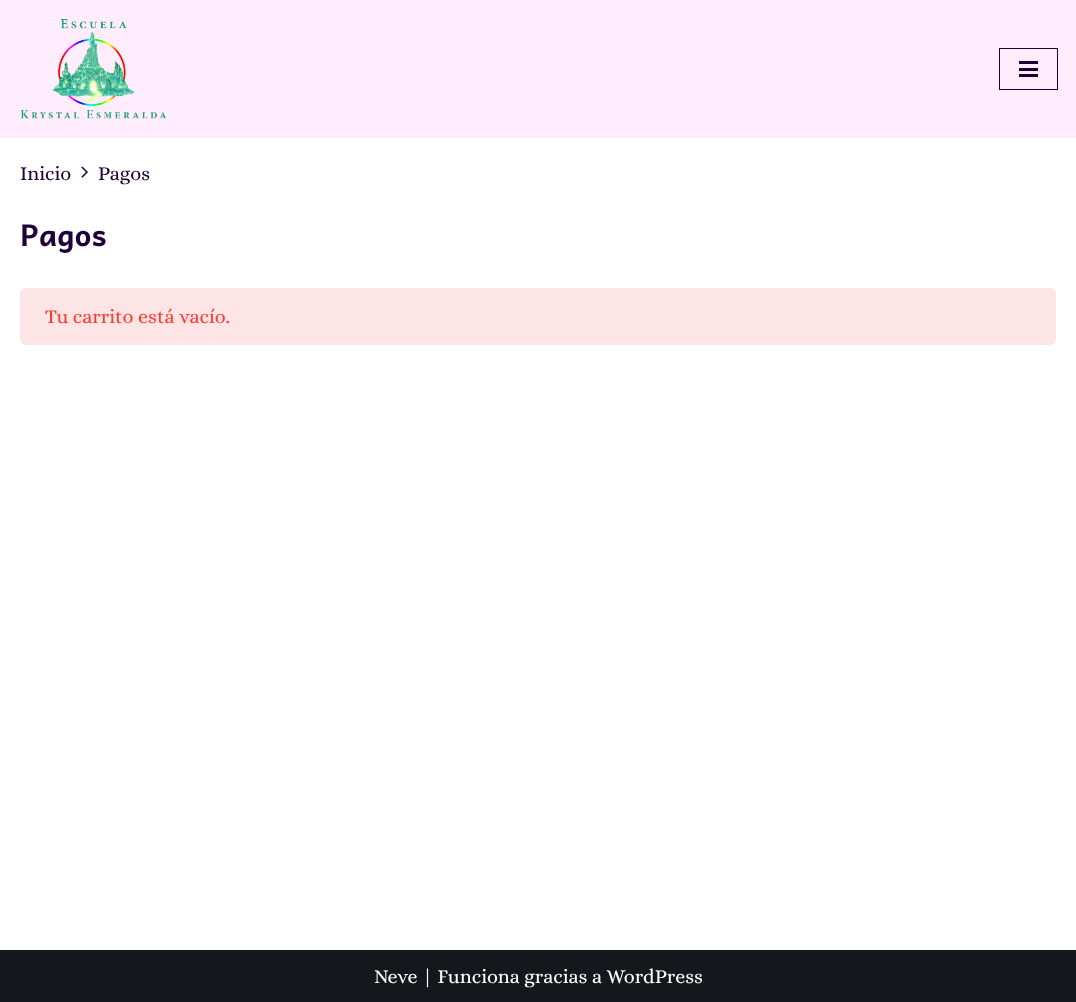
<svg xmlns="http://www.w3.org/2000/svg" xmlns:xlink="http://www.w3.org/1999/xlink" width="1076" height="1002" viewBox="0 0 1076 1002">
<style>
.cls-1{font:20px Alice;fill:#1e0138}
.cls-2{font:bold 30px Andika;fill:#1e0138}
.cls-3{font:20px Alice;fill:#ff3b30}
.cls-4{font:20px Alice;fill:#ffffff}
</style>
<rect width="100%" height="100%" fill="#ffffff"/>
<rect fill="#ffedfe" x="0" y="0" width="1076" height="138"/>
<image xlink:href="image0.png" x="20" y="19" width="147" height="100"/>
<rect fill="none" stroke="#1e0138" x="999.5" y="48.5" width="58" height="41"/>
<rect fill="#1e0138" x="1019" y="61" width="19" height="3"/>
<rect fill="#1e0138" x="1019" y="68" width="19" height="3"/>
<rect fill="#1e0138" x="1019" y="74" width="19" height="3"/>
<image xlink:href="image1.png" x="81" y="166" width="7" height="12"/>
<rect fill="#fee5e5" x="20" y="288" width="1036" height="57" rx="6"/>
<rect fill="#14171c" x="0" y="950" width="1076" height="52"/>
<text class="cls-1" x="20" y="180">Inicio</text>
<text class="cls-1" x="98" y="180">Pagos</text>
<text class="cls-2" x="20" y="246">Pagos</text>
<text class="cls-3" x="45" y="323">Tu carrito está vacío.</text>
<text class="cls-4" x="374" y="983">Neve | Funciona gracias a WordPress</text>
</svg>
